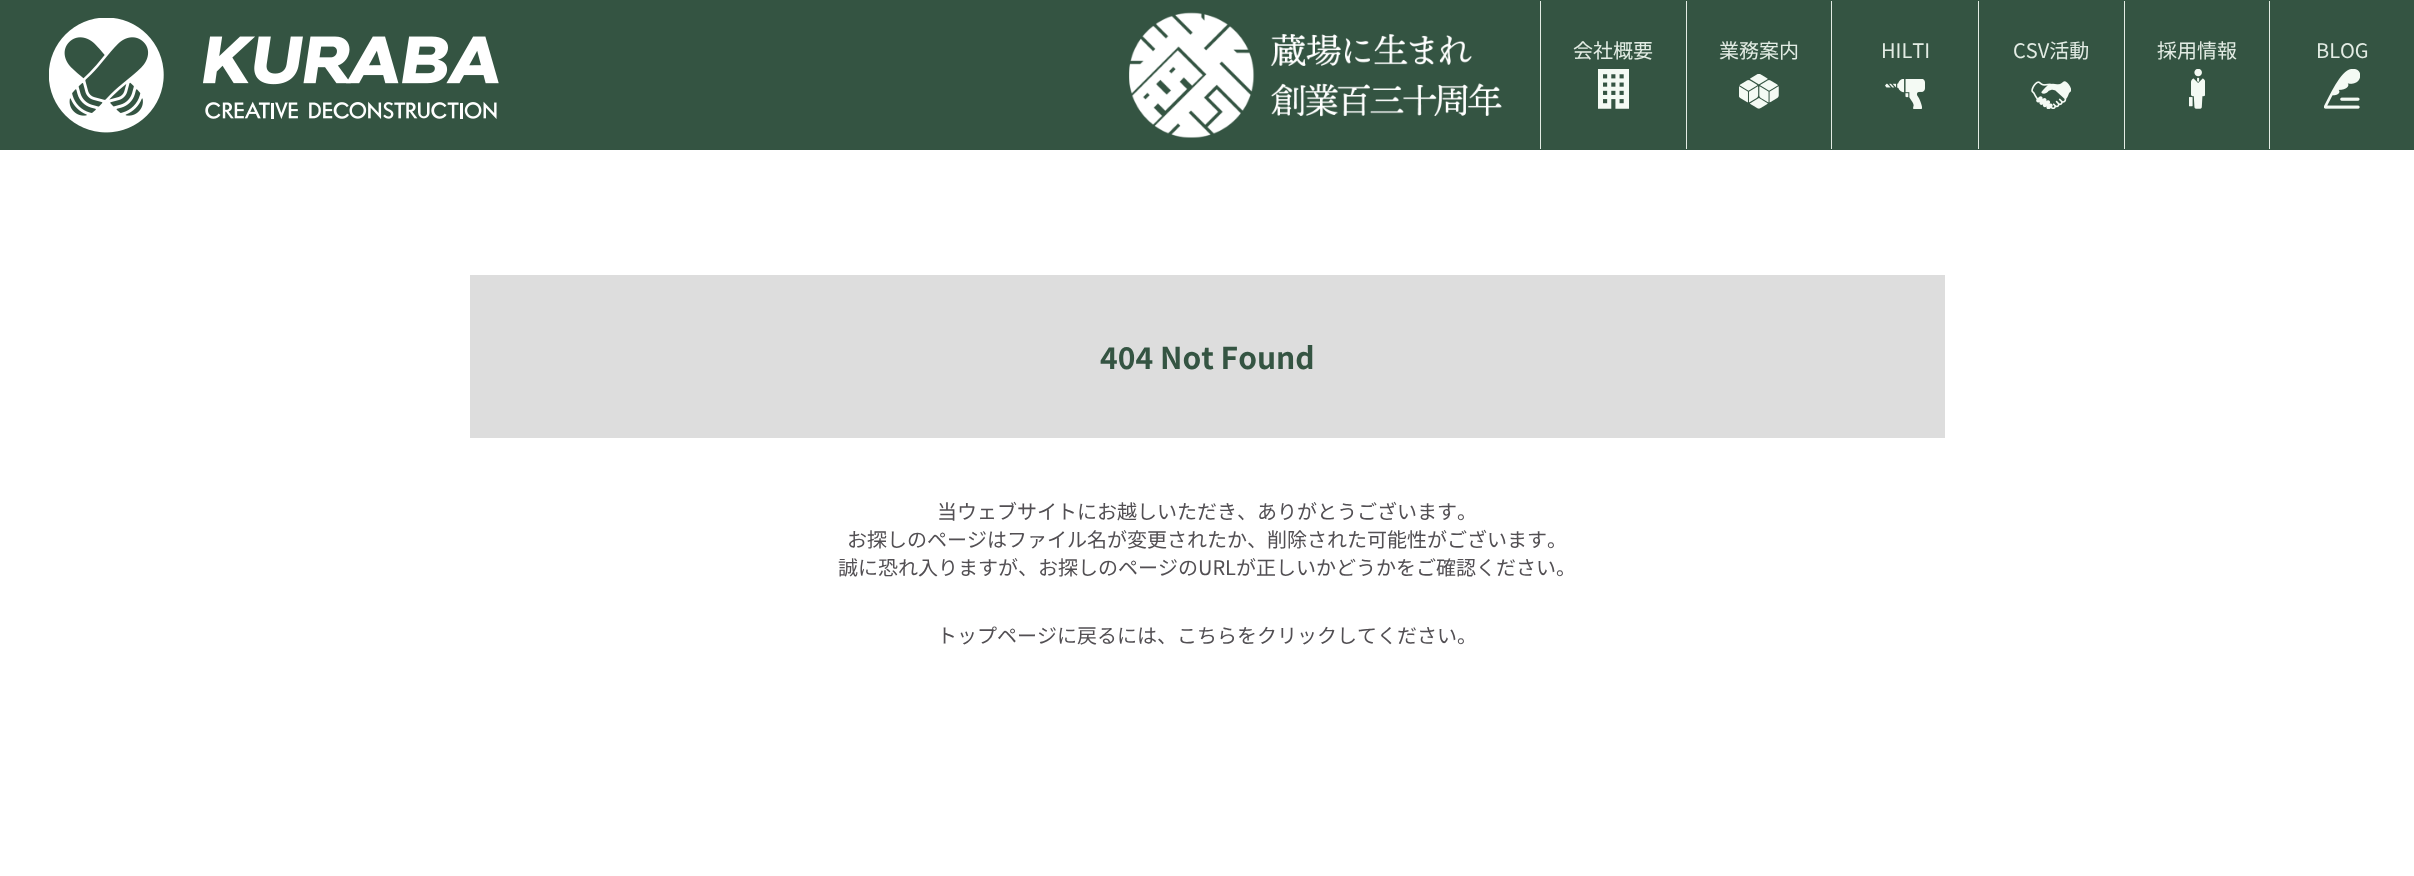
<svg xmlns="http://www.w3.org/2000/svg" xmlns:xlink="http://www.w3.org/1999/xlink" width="2414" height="876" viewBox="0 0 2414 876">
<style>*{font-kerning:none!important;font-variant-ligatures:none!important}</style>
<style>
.cls-1{font:20px Noto Sans JP;fill:#e3ece4}
.cls-2{font:bold 30px Noto Sans JP;fill:#345442}
.cls-3{font:20px Noto Sans JP;fill:#524f53}
</style>
<rect width="100%" height="100%" fill="#ffffff"/>
<rect fill="#345442" x="0" y="0" width="2414" height="150"/>
<image xlink:href="image0.png" x="49" y="18" width="450" height="115"/>
<image xlink:href="image1.png" x="1129" y="12" width="373" height="126"/>
<rect fill="#e3ece4" x="1540" y="1" width="1" height="148"/>
<image xlink:href="image2.png" x="1598" y="69" width="31" height="40"/>
<rect fill="#e3ece4" x="1686" y="1" width="1" height="148"/>
<image xlink:href="image3.png" x="1739" y="74" width="40" height="35"/>
<rect fill="#e3ece4" x="1831" y="1" width="1" height="148"/>
<image xlink:href="image4.png" x="1885" y="79" width="40" height="30"/>
<rect fill="#e3ece4" x="1978" y="1" width="1" height="148"/>
<image xlink:href="image5.png" x="2031" y="81" width="40" height="28"/>
<rect fill="#e3ece4" x="2124" y="1" width="1" height="148"/>
<image xlink:href="image6.png" x="2189" y="69" width="16" height="40"/>
<rect fill="#e3ece4" x="2269" y="1" width="1" height="148"/>
<image xlink:href="image7.png" x="2324" y="69" width="36" height="40"/>
<rect fill="#dddddd" x="470" y="275" width="1475" height="163"/>
<text class="cls-1" x="1573" y="58">会社概要</text>
<text class="cls-1" x="1719" y="58">業務案内</text>
<text class="cls-1" x="1881" y="58">HILTI</text>
<text class="cls-1" x="2013" y="58">CSV活動</text>
<text class="cls-1" x="2157" y="58">採用情報</text>
<text class="cls-1" x="2316" y="58">BLOG</text>
<text class="cls-2" x="1100" y="369">404 Not Found</text>
<text class="cls-3" x="937" y="519">当ウェブサイトにお越しいただき、ありがとうございます。</text>
<text class="cls-3" x="847" y="547">お探しのページはファイル名が変更されたか、削除された可能性がございます。</text>
<text class="cls-3" x="838" y="575">誠に恐れ入りますが、お探しのページのURLが正しいかどうかをご確認ください。</text>
<text class="cls-3" x="937" y="643">トップページに戻るには、こちらをクリックしてください。</text>
</svg>
